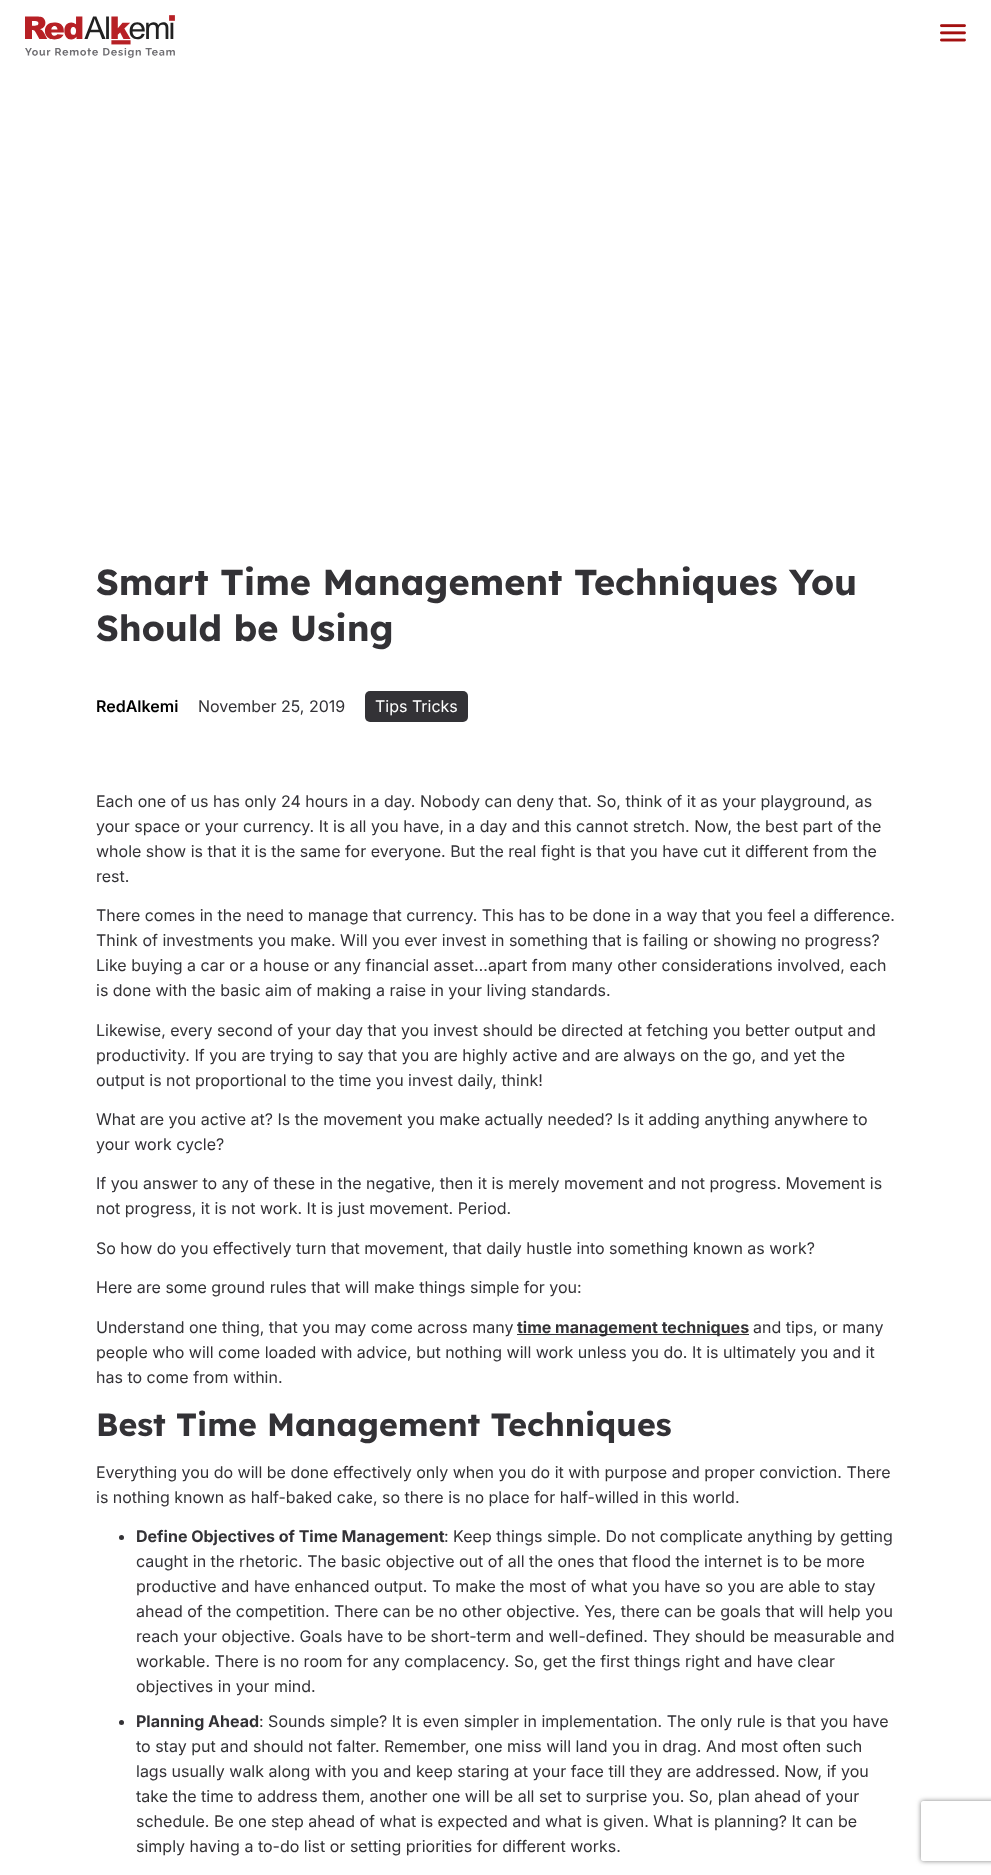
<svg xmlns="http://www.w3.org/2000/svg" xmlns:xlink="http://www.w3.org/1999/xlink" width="991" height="1875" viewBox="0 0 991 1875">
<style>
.cls-1{font:bold 36px Lexend;fill:#333236}
.cls-2{font:600 16px Inter;fill:#000000}
.cls-3{font:16px Inter;fill:#333236}
.cls-4{font:16px Inter;fill:#ffffff}
.cls-5{font:bold 16px Inter;fill:#333236}
.cls-6{font:bold 32px Lexend;fill:#333236}
</style>
<defs>
<clipPath id="clip1"><path d="M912 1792H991V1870H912ZM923 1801H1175C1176 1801 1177 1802 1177 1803V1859C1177 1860 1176 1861 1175 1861H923C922 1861 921 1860 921 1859V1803C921 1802 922 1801 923 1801Z" clip-rule="evenodd"/></clipPath>
</defs>
<rect width="100%" height="100%" fill="#ffffff"/>
<image xlink:href="image0.png" x="25" y="15" width="150" height="43"/>
<image xlink:href="image1.png" x="940" y="24" width="26" height="18"/>
<rect fill="#333236" x="365" y="691" width="103" height="31" rx="5"/>
<rect fill="#333236" x="517" y="1334" width="232" height="1"/>
<circle fill="#333236" cx="121.5" cy="1537.5" r="2.5"/>
<circle fill="#333236" cx="121.5" cy="1722.5" r="2.5"/>
<g clip-path="url(#clip1)">
<rect fill="#808080" filter="blur(2.5px)" x="921" y="1801" width="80" height="60" rx="2"/>
</g>
<text class="cls-1"><tspan x="96" y="595">Smart Time Management Techniques You</tspan><tspan x="96" y="641">Should be Using</tspan></text>
<text class="cls-2" x="96" y="712">RedAlkemi</text>
<text class="cls-3" x="198" y="712">November 25, 2019</text>
<text class="cls-4" x="375" y="712">Tips Tricks</text>
<text class="cls-3"><tspan x="96" y="807">Each one of us has only 24 hours in a day. Nobody can deny that. So, think of it as your playground, as</tspan><tspan x="96" y="832">your space or your currency. It is all you have, in a day and this cannot stretch. Now, the best part of the</tspan><tspan x="96" y="857">whole show is that it is the same for everyone. But the real fight is that you have cut it different from the</tspan><tspan x="96" y="882">rest.</tspan></text>
<text class="cls-3"><tspan x="96" y="921">There comes in the need to manage that currency. This has to be done in a way that you feel a difference.</tspan><tspan x="96" y="946">Think of investments you make. Will you ever invest in something that is failing or showing no progress?</tspan><tspan x="96" y="971">Like buying a car or a house or any financial asset…apart from many other considerations involved, each</tspan><tspan x="96" y="996">is done with the basic aim of making a raise in your living standards.</tspan></text>
<text class="cls-3"><tspan x="96" y="1036">Likewise, every second of your day that you invest should be directed at fetching you better output and</tspan><tspan x="96" y="1061">productivity. If you are trying to say that you are highly active and are always on the go, and yet the</tspan><tspan x="96" y="1086">output is not proportional to the time you invest daily, think!</tspan></text>
<text class="cls-3"><tspan x="96" y="1125">What are you active at? Is the movement you make actually needed? Is it adding anything anywhere to</tspan><tspan x="96" y="1150">your work cycle?</tspan></text>
<text class="cls-3"><tspan x="96" y="1189">If you answer to any of these in the negative, then it is merely movement and not progress. Movement is</tspan><tspan x="96" y="1214">not progress, it is not work. It is just movement. Period.</tspan></text>
<text class="cls-3" x="96" y="1254">So how do you effectively turn that movement, that daily hustle into something known as work?</text>
<text class="cls-3" x="96" y="1293">Here are some ground rules that will make things simple for you:</text>
<text class="cls-3" x="96" y="1333">Understand one thing, that you may come across many</text>
<text class="cls-5" x="517" y="1333">time management techniques</text>
<text class="cls-3" x="753" y="1333">and tips, or many</text>
<text class="cls-3"><tspan x="96" y="1358">people who will come loaded with advice, but nothing will work unless you do. It is ultimately you and it</tspan><tspan x="96" y="1383">has to come from within.</tspan></text>
<text class="cls-6" x="96" y="1436">Best Time Management Techniques</text>
<text class="cls-3"><tspan x="96" y="1478">Everything you do will be done effectively only when you do it with purpose and proper conviction. There</tspan><tspan x="96" y="1503">is nothing known as half-baked cake, so there is no place for half-willed in this world.</tspan></text>
<text class="cls-5" x="136" y="1542">Define Objectives of Time Management</text>
<text class="cls-3" x="444" y="1542">: Keep things simple. Do not complicate anything by getting</text>
<text class="cls-3"><tspan x="136" y="1567">caught in the rhetoric. The basic objective out of all the ones that flood the internet is to be more</tspan><tspan x="136" y="1592">productive and have enhanced output. To make the most of what you have so you are able to stay</tspan><tspan x="136" y="1617">ahead of the competition. There can be no other objective. Yes, there can be goals that will help you</tspan><tspan x="136" y="1642">reach your objective. Goals have to be short-term and well-defined. They should be measurable and</tspan><tspan x="136" y="1667">workable. There is no room for any complacency. So, get the first things right and have clear</tspan><tspan x="136" y="1692">objectives in your mind.</tspan></text>
<text class="cls-5" x="136" y="1727">Planning Ahead</text>
<text class="cls-3" x="259" y="1727">: Sounds simple? It is even simpler in implementation. The only rule is that you have</text>
<text class="cls-3"><tspan x="136" y="1752">to stay put and should not falter. Remember, one miss will land you in drag. And most often such</tspan><tspan x="136" y="1777">lags usually walk along with you and keep staring at your face till they are addressed. Now, if you</tspan><tspan x="136" y="1802">take the time to address them, another one will be all set to surprise you. So, plan ahead of your</tspan><tspan x="136" y="1827">schedule. Be one step ahead of what is expected and what is given. What is planning? It can be</tspan><tspan x="136" y="1852">simply having a to-do list or setting priorities for different works.</tspan></text>
</svg>
